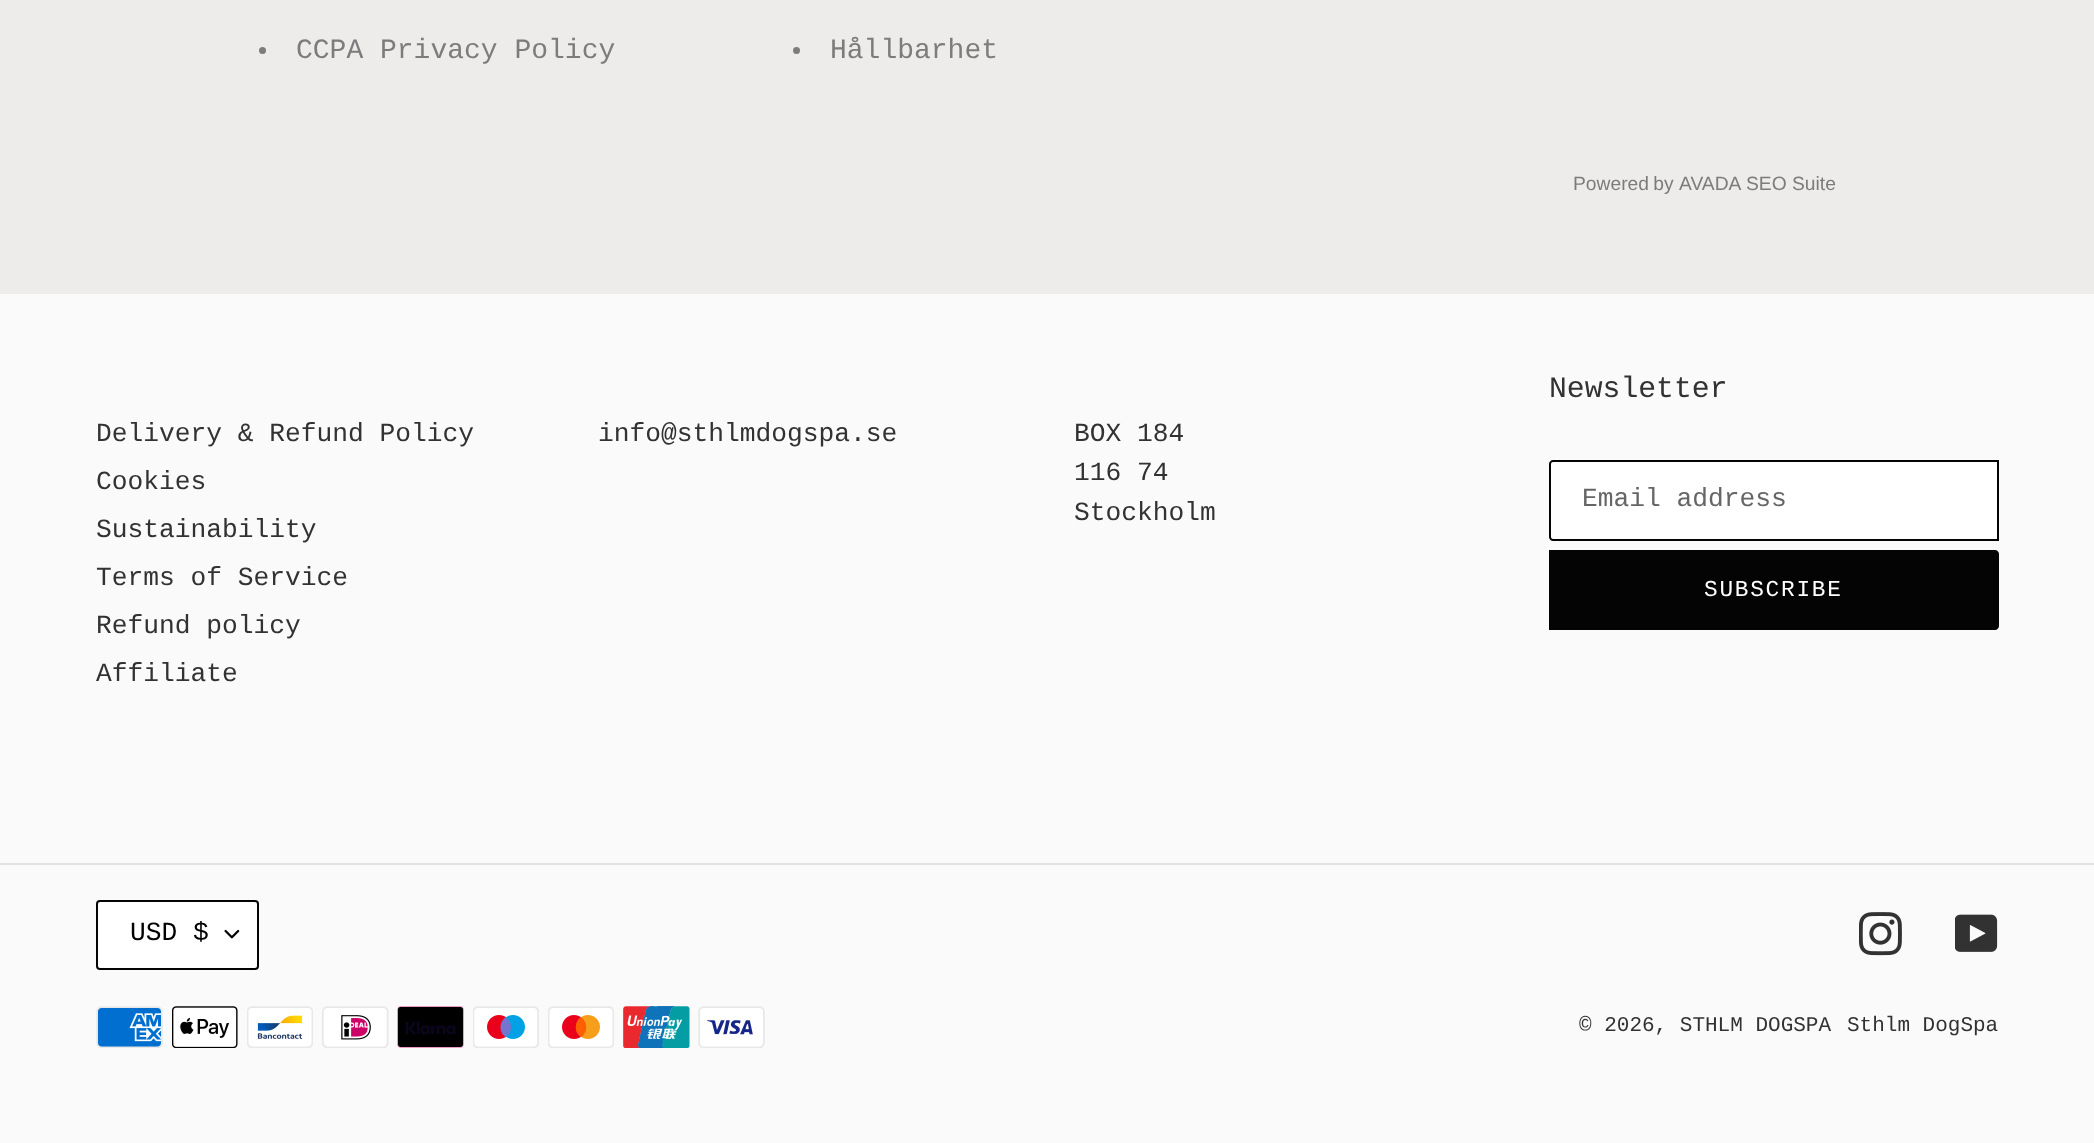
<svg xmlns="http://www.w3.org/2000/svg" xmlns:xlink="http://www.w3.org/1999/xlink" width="2094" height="1143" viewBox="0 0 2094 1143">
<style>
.cls-1{font:28px Liberation Mono;fill:#7c7c7c}
.cls-2{font:19.25px Liberation Sans;fill:#7c7c7c}
.cls-3{font:26.25px Liberation Mono;fill:#333232}
.cls-4{font:29.75px Liberation Mono;fill:#333232}
.cls-5{font:26.25px Liberation Mono;fill:#666666}
.cls-6{font:22.75px Liberation Mono;letter-spacing:1.75px;fill:#ffffff}
.cls-7{font:26.25px Liberation Mono;fill:#000000}
.cls-8{font:21px Liberation Mono;fill:#333232}
</style>
<rect width="100%" height="100%" fill="#eeecea"/>
<circle fill="#7c7c7c" cx="262.5" cy="50.5" r="3.5"/>
<circle fill="#7c7c7c" cx="796.5" cy="50.5" r="3.5"/>
<rect fill="#fafafa" x="0" y="294" width="2094" height="849"/>
<path fill="#ffffff" stroke="#040404" stroke-width="2" d="M1553 461H1998V540H1553C1551.5 540 1550 538.5 1550 537V464C1550 462.5 1551.5 461 1553 461Z"/>
<path fill="#040404" d="M1549 550H1995C1997 550 1999 552 1999 554V626C1999 628 1997 630 1995 630H1549Z"/>
<rect fill="#e1e1e1" x="0" y="863" width="2094" height="2"/>
<rect fill="#ffffff" x="96" y="900" width="163" height="70" rx="4"/>
<image xlink:href="image0.png" x="224" y="929" width="16" height="10"/>
<rect fill="none" stroke="#040404" stroke-width="2" x="97" y="901" width="161" height="68" rx="3"/>
<image xlink:href="image1.png" x="1859" y="912" width="43" height="44"/>
<image xlink:href="image2.png" x="1955" y="914" width="43" height="38"/>
<image xlink:href="image3.png" x="96" y="1006" width="67" height="42"/>
<image xlink:href="image4.png" x="172" y="1006" width="66" height="42"/>
<image xlink:href="image5.png" x="247" y="1006" width="66" height="42"/>
<image xlink:href="image6.png" x="322" y="1006" width="67" height="42"/>
<image xlink:href="image7.png" x="397" y="1006" width="67" height="42"/>
<image xlink:href="image8.png" x="473" y="1006" width="66" height="42"/>
<image xlink:href="image9.png" x="548" y="1006" width="66" height="42"/>
<image xlink:href="image10.png" x="623" y="1006" width="67" height="42"/>
<image xlink:href="image11.png" x="698" y="1006" width="67" height="42"/>
<text class="cls-1" x="296" y="58">CCPA Privacy Policy</text>
<text class="cls-1" x="830" y="58">Hållbarhet</text>
<text class="cls-2" x="1573" y="190" word-spacing="-1">Powered by</text>
<text class="cls-2" x="1679" y="190">AVADA</text>
<text class="cls-2" x="1746" y="190">SEO Suite</text>
<text class="cls-3"><tspan x="96" y="441">Delivery &amp; Refund Policy</tspan><tspan x="96" y="489">Cookies</tspan><tspan x="96" y="537">Sustainability</tspan><tspan x="96" y="585">Terms of Service</tspan><tspan x="96" y="633">Refund policy</tspan><tspan x="96" y="681">Affiliate</tspan></text>
<text class="cls-3" x="598" y="441">info@sthlmdogspa.se</text>
<text class="cls-3"><tspan x="1074" y="441">BOX 184</tspan><tspan x="1074" y="480">116 74</tspan><tspan x="1074" y="520">Stockholm</tspan></text>
<text class="cls-4" x="1549" y="397">Newsletter</text>
<text class="cls-5" x="1582" y="506">Email address</text>
<text class="cls-6" x="1704" y="596">SUBSCRIBE</text>
<text class="cls-7" x="130" y="940">USD $</text>
<text class="cls-8" x="1579" y="1031">© 2026, STHLM DOGSPA</text>
<text class="cls-8" x="1847" y="1031">Sthlm DogSpa</text>
</svg>
